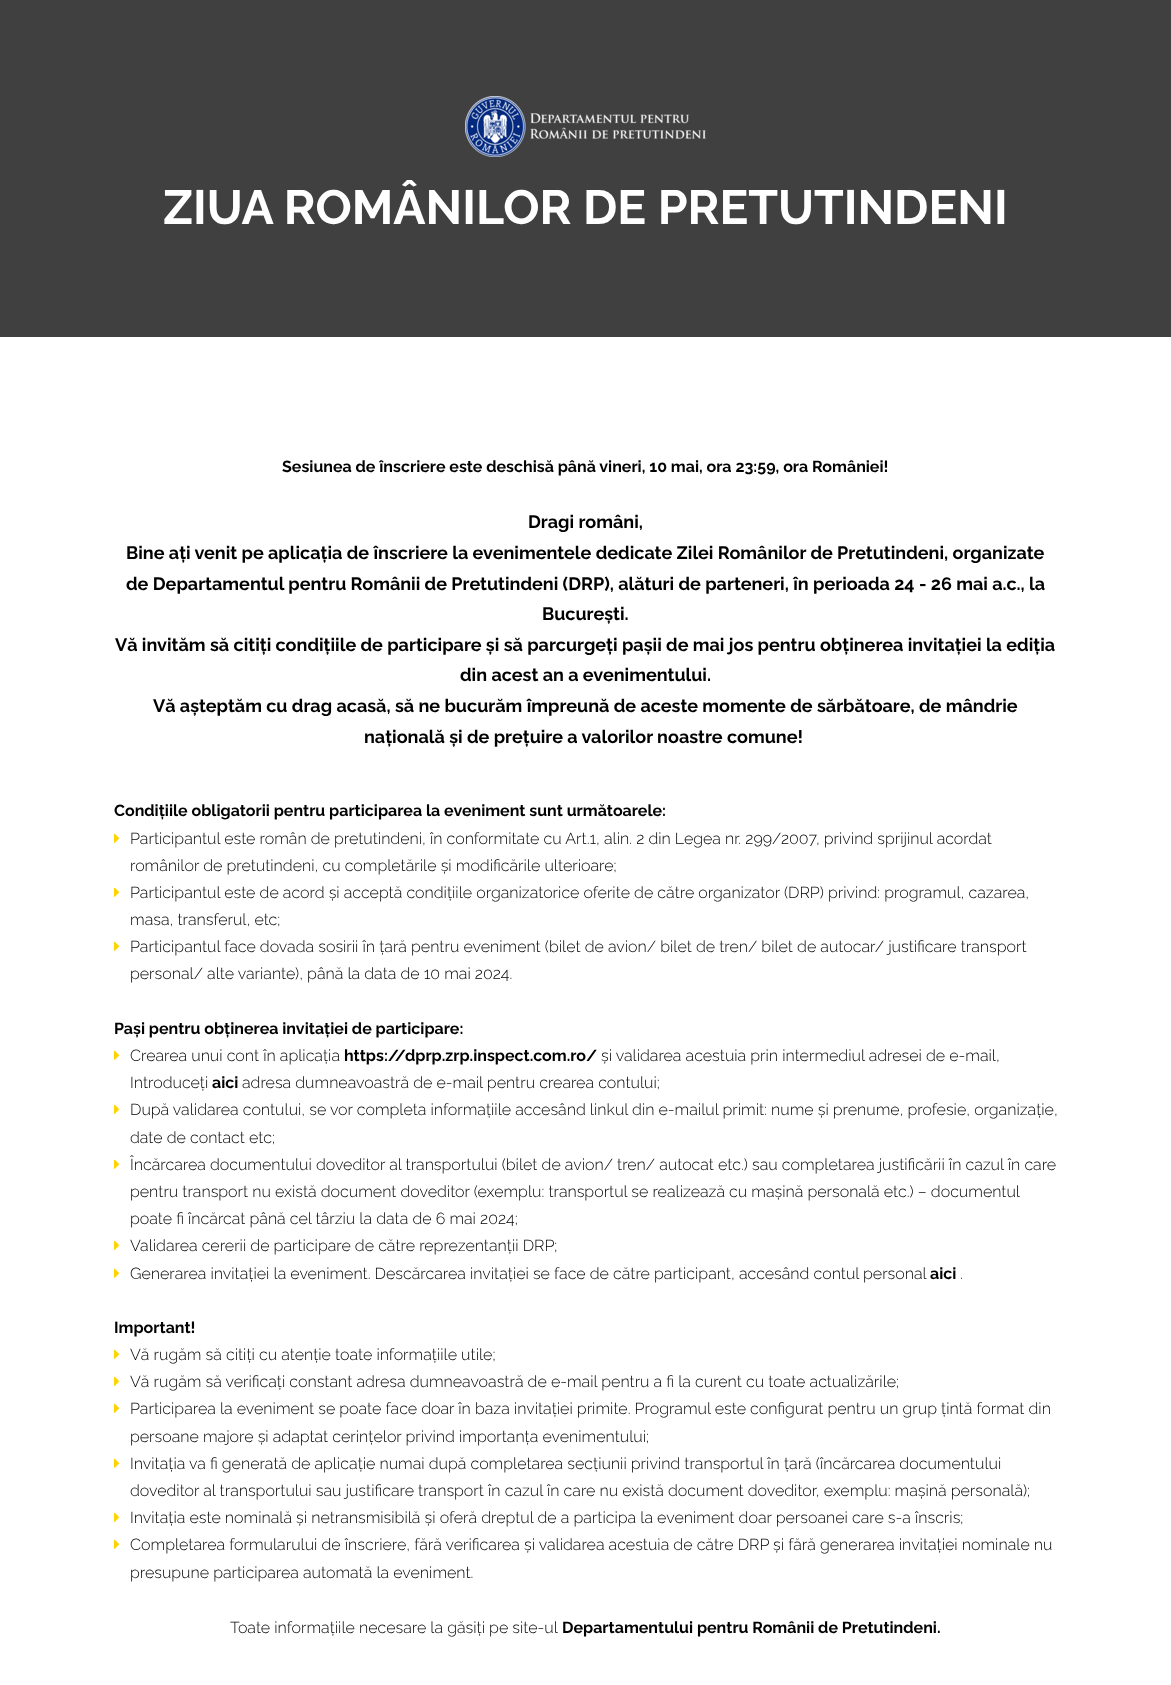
<svg xmlns="http://www.w3.org/2000/svg" xmlns:xlink="http://www.w3.org/1999/xlink" width="1171" height="1685" viewBox="0 0 1171 1685">
<style>
.cls-1{font:bold 48px Raleway;fill:#ffffff}
.cls-2{font:bold 16px Raleway;fill:#000000}
.cls-3{font:bold 18px Raleway;fill:#000000}
.cls-4{font:300 16px Raleway;fill:#000000}
</style>
<rect width="100%" height="100%" fill="#ffffff"/>
<rect fill="#404040" x="0" y="0" width="1171" height="337"/>
<image xlink:href="image0.png" x="465" y="96" width="241" height="61"/>
<image xlink:href="image1.png" x="114" y="833" width="6" height="10"/>
<image xlink:href="image1.png" x="114" y="887" width="6" height="10"/>
<image xlink:href="image1.png" x="114" y="941" width="6" height="10"/>
<image xlink:href="image1.png" x="114" y="1050" width="6" height="10"/>
<image xlink:href="image1.png" x="114" y="1104" width="6" height="10"/>
<image xlink:href="image1.png" x="114" y="1159" width="6" height="10"/>
<image xlink:href="image1.png" x="114" y="1240" width="6" height="10"/>
<image xlink:href="image1.png" x="114" y="1268" width="6" height="10"/>
<image xlink:href="image1.png" x="114" y="1349" width="6" height="10"/>
<image xlink:href="image1.png" x="114" y="1376" width="6" height="10"/>
<image xlink:href="image1.png" x="114" y="1403" width="6" height="10"/>
<image xlink:href="image1.png" x="114" y="1458" width="6" height="10"/>
<image xlink:href="image1.png" x="114" y="1512" width="6" height="10"/>
<image xlink:href="image1.png" x="114" y="1539" width="6" height="10"/>
<text class="cls-1" x="163" y="224">ZIUA ROMÂNILOR DE PRETUTINDENI</text>
<text class="cls-2" x="282" y="472">Sesiunea de înscriere este deschisă până vineri, 10 mai, ora 23:59, ora României!</text>
<text class="cls-3" x="528" y="528">Dragi români,</text>
<text class="cls-3"><tspan x="126" y="559">Bine ați venit pe aplicația de înscriere la evenimentele dedicate Zilei Românilor de Pretutindeni, organizate</tspan><tspan x="126" y="590">de Departamentul pentru Românii de Pretutindeni (DRP), alături de parteneri, în perioada 24 - 26 mai a.c., la</tspan></text>
<text class="cls-3" x="542" y="620">București.</text>
<text class="cls-3" x="115" y="651">Vă invităm să citiți condițiile de participare și să parcurgeți pașii de mai jos pentru obținerea invitației la ediția</text>
<text class="cls-3" x="460" y="681">din acest an a evenimentului.</text>
<text class="cls-3" x="153" y="712">Vă așteptăm cu drag acasă, să ne bucurăm împreună de aceste momente de sărbătoare, de mândrie</text>
<text class="cls-3" x="364" y="743">națională și de prețuire a valorilor noastre comune!</text>
<text class="cls-2" x="114" y="816">Condițiile obligatorii pentru participarea la eveniment sunt următoarele:</text>
<text class="cls-4"><tspan x="130" y="844">Participantul este român de pretutindeni, în conformitate cu Art.1, alin. 2 din Legea nr. 299/2007, privind sprijinul acordat</tspan><tspan x="130" y="871">românilor de pretutindeni, cu completările și modificările ulterioare;</tspan><tspan x="130" y="898">Participantul este de acord și acceptă condițiile organizatorice oferite de către organizator (DRP) privind: programul, cazarea,</tspan><tspan x="130" y="925">masa, transferul, etc;</tspan><tspan x="130" y="952">Participantul face dovada sosirii în țară pentru eveniment (bilet de avion/ bilet de tren/ bilet de autocar/ justificare transport</tspan><tspan x="130" y="979">personal/ alte variante), până la data de 10 mai 2024.</tspan></text>
<text class="cls-2" x="114" y="1034">Pași pentru obținerea invitației de participare:</text>
<text class="cls-4" x="130" y="1061">Crearea unui cont în aplicația</text>
<text class="cls-2" x="344" y="1061">https://dprp.zrp.inspect.com.ro/</text>
<text class="cls-4" x="601" y="1061">și validarea acestuia prin intermediul adresei de e-mail,</text>
<text class="cls-4" x="130" y="1088">Introduceți</text>
<text class="cls-2" x="212" y="1088">aici</text>
<text class="cls-4" x="242" y="1088">adresa dumneavoastră de e-mail pentru crearea contului;</text>
<text class="cls-4"><tspan x="130" y="1115">După validarea contului, se vor completa informațiile accesând linkul din e-mailul primit: nume și prenume, profesie, organizație,</tspan><tspan x="130" y="1143">date de contact etc;</tspan><tspan x="130" y="1170">Încărcarea documentului doveditor al transportului (bilet de avion/ tren/ autocat etc.) sau completarea justificării în cazul în care</tspan><tspan x="130" y="1197">pentru transport nu există document doveditor (exemplu: transportul se realizează cu mașină personală etc.) – documentul</tspan><tspan x="130" y="1224">poate fi încărcat până cel târziu la data de 6 mai 2024;</tspan><tspan x="130" y="1251">Validarea cererii de participare de către reprezentanții DRP;</tspan><tspan x="130" y="1279">Generarea invitației la eveniment. Descărcarea invitației se face de către participant, accesând contul personal</tspan></text>
<text class="cls-2" x="930" y="1279">aici</text>
<text class="cls-4" x="960" y="1279">.</text>
<text class="cls-2" x="114" y="1333">Important!</text>
<text class="cls-4"><tspan x="130" y="1360">Vă rugăm să citiți cu atenție toate informațiile utile;</tspan><tspan x="130" y="1387">Vă rugăm să verificați constant adresa dumneavoastră de e-mail pentru a fi la curent cu toate actualizările;</tspan><tspan x="130" y="1414">Participarea la eveniment se poate face doar în baza invitației primite. Programul este configurat pentru un grup țintă format din</tspan><tspan x="130" y="1442">persoane majore și adaptat cerințelor privind importanța evenimentului;</tspan><tspan x="130" y="1469">Invitația va fi generată de aplicație numai după completarea secțiunii privind transportul în țară (încărcarea documentului</tspan><tspan x="130" y="1496">doveditor al transportului sau justificare transport în cazul în care nu există document doveditor, exemplu: mașină personală);</tspan><tspan x="130" y="1523">Invitația este nominală și netransmisibilă și oferă dreptul de a participa la eveniment doar persoanei care s-a înscris;</tspan><tspan x="130" y="1550">Completarea formularului de înscriere, fără verificarea și validarea acestuia de către DRP și fără generarea invitației nominale nu</tspan><tspan x="130" y="1578">presupune participarea automată la eveniment.</tspan></text>
<text class="cls-4" x="230" y="1633">Toate informațiile necesare la găsiți pe site-ul</text>
<text class="cls-2" x="562" y="1633">Departamentului pentru Românii de Pretutindeni.</text>
</svg>
